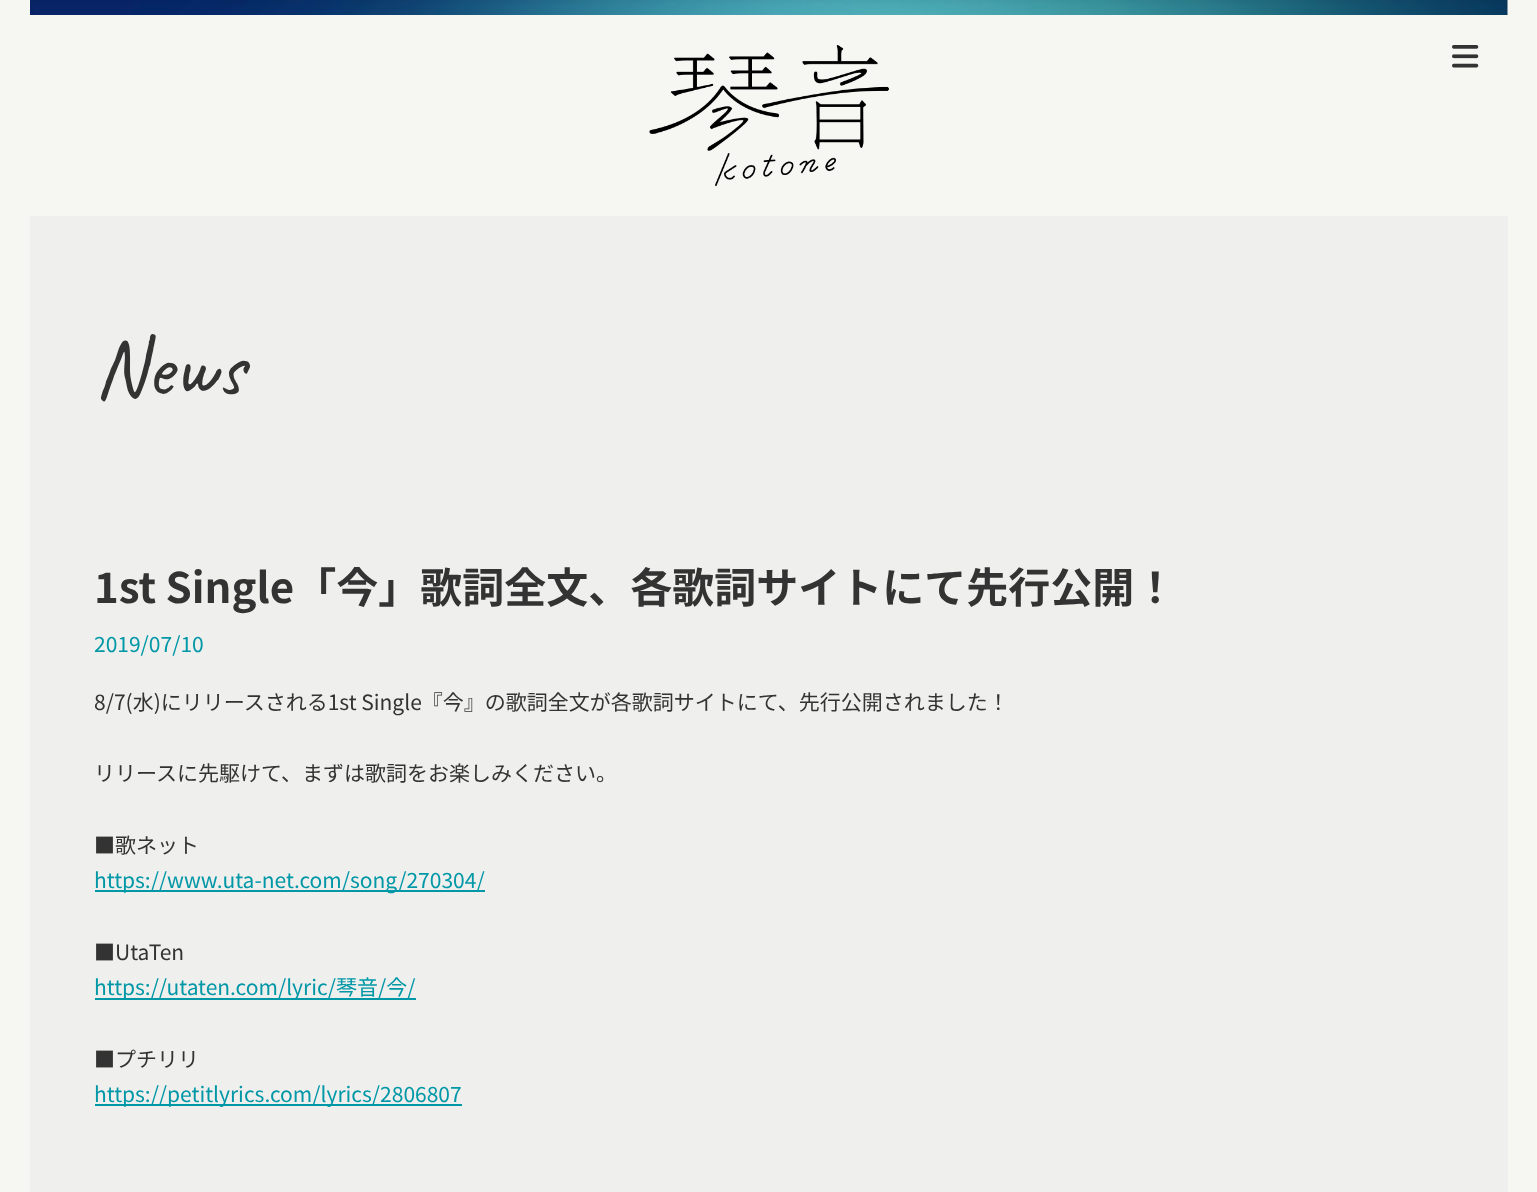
<svg xmlns="http://www.w3.org/2000/svg" xmlns:xlink="http://www.w3.org/1999/xlink" width="1537" height="1192" viewBox="0 0 1537 1192">
<style>
.cls-1{font:84px Caveat;fill:#333333}
.cls-2{font:bold 42px Noto Sans JP;fill:#333333}
.cls-3{font:21px Noto Sans JP;fill:#0097a7}
.cls-4{font:21px Noto Sans JP;fill:#333333}
</style>
<rect width="100%" height="100%" fill="#f6f6f3"/>
<image xlink:href="image0.png" x="30" y="0" width="1478" height="15"/>
<image xlink:href="image1.png" x="649" y="45" width="240" height="141"/>
<image xlink:href="image2.png" x="1452" y="45" width="27" height="23"/>
<rect fill="#efefed" x="30" y="216" width="1478" height="976"/>
<rect fill="#0097a7" x="95" y="890" width="390" height="2"/>
<rect fill="#0097a7" x="95" y="998" width="321" height="2"/>
<rect fill="#0097a7" x="95" y="1104" width="367" height="2"/>
<text class="cls-1" x="94" y="395">News</text>
<text class="cls-2" x="94" y="603">1st Single「今」歌詞全文、各歌詞サイトにて先行公開！</text>
<text class="cls-3" x="94" y="652">2019/07/10</text>
<text class="cls-4" x="94" y="710">8/7(水)にリリースされる1st Single『今』の歌詞全文が各歌詞サイトにて、先行公開されました！</text>
<text class="cls-4" x="94" y="781">リリースに先駆けて、まずは歌詞をお楽しみください。</text>
<text class="cls-4" x="94" y="853">■歌ネット</text>
<text class="cls-3" x="94" y="888">https://www.uta-net.com/song/270304/</text>
<text class="cls-4" x="94" y="960">■UtaTen</text>
<text class="cls-3" x="94" y="995">https://utaten.com/lyric/琴音/今/</text>
<text class="cls-4" x="94" y="1067">■プチリリ</text>
<text class="cls-3" x="94" y="1102">https://petitlyrics.com/lyrics/2806807</text>
</svg>
